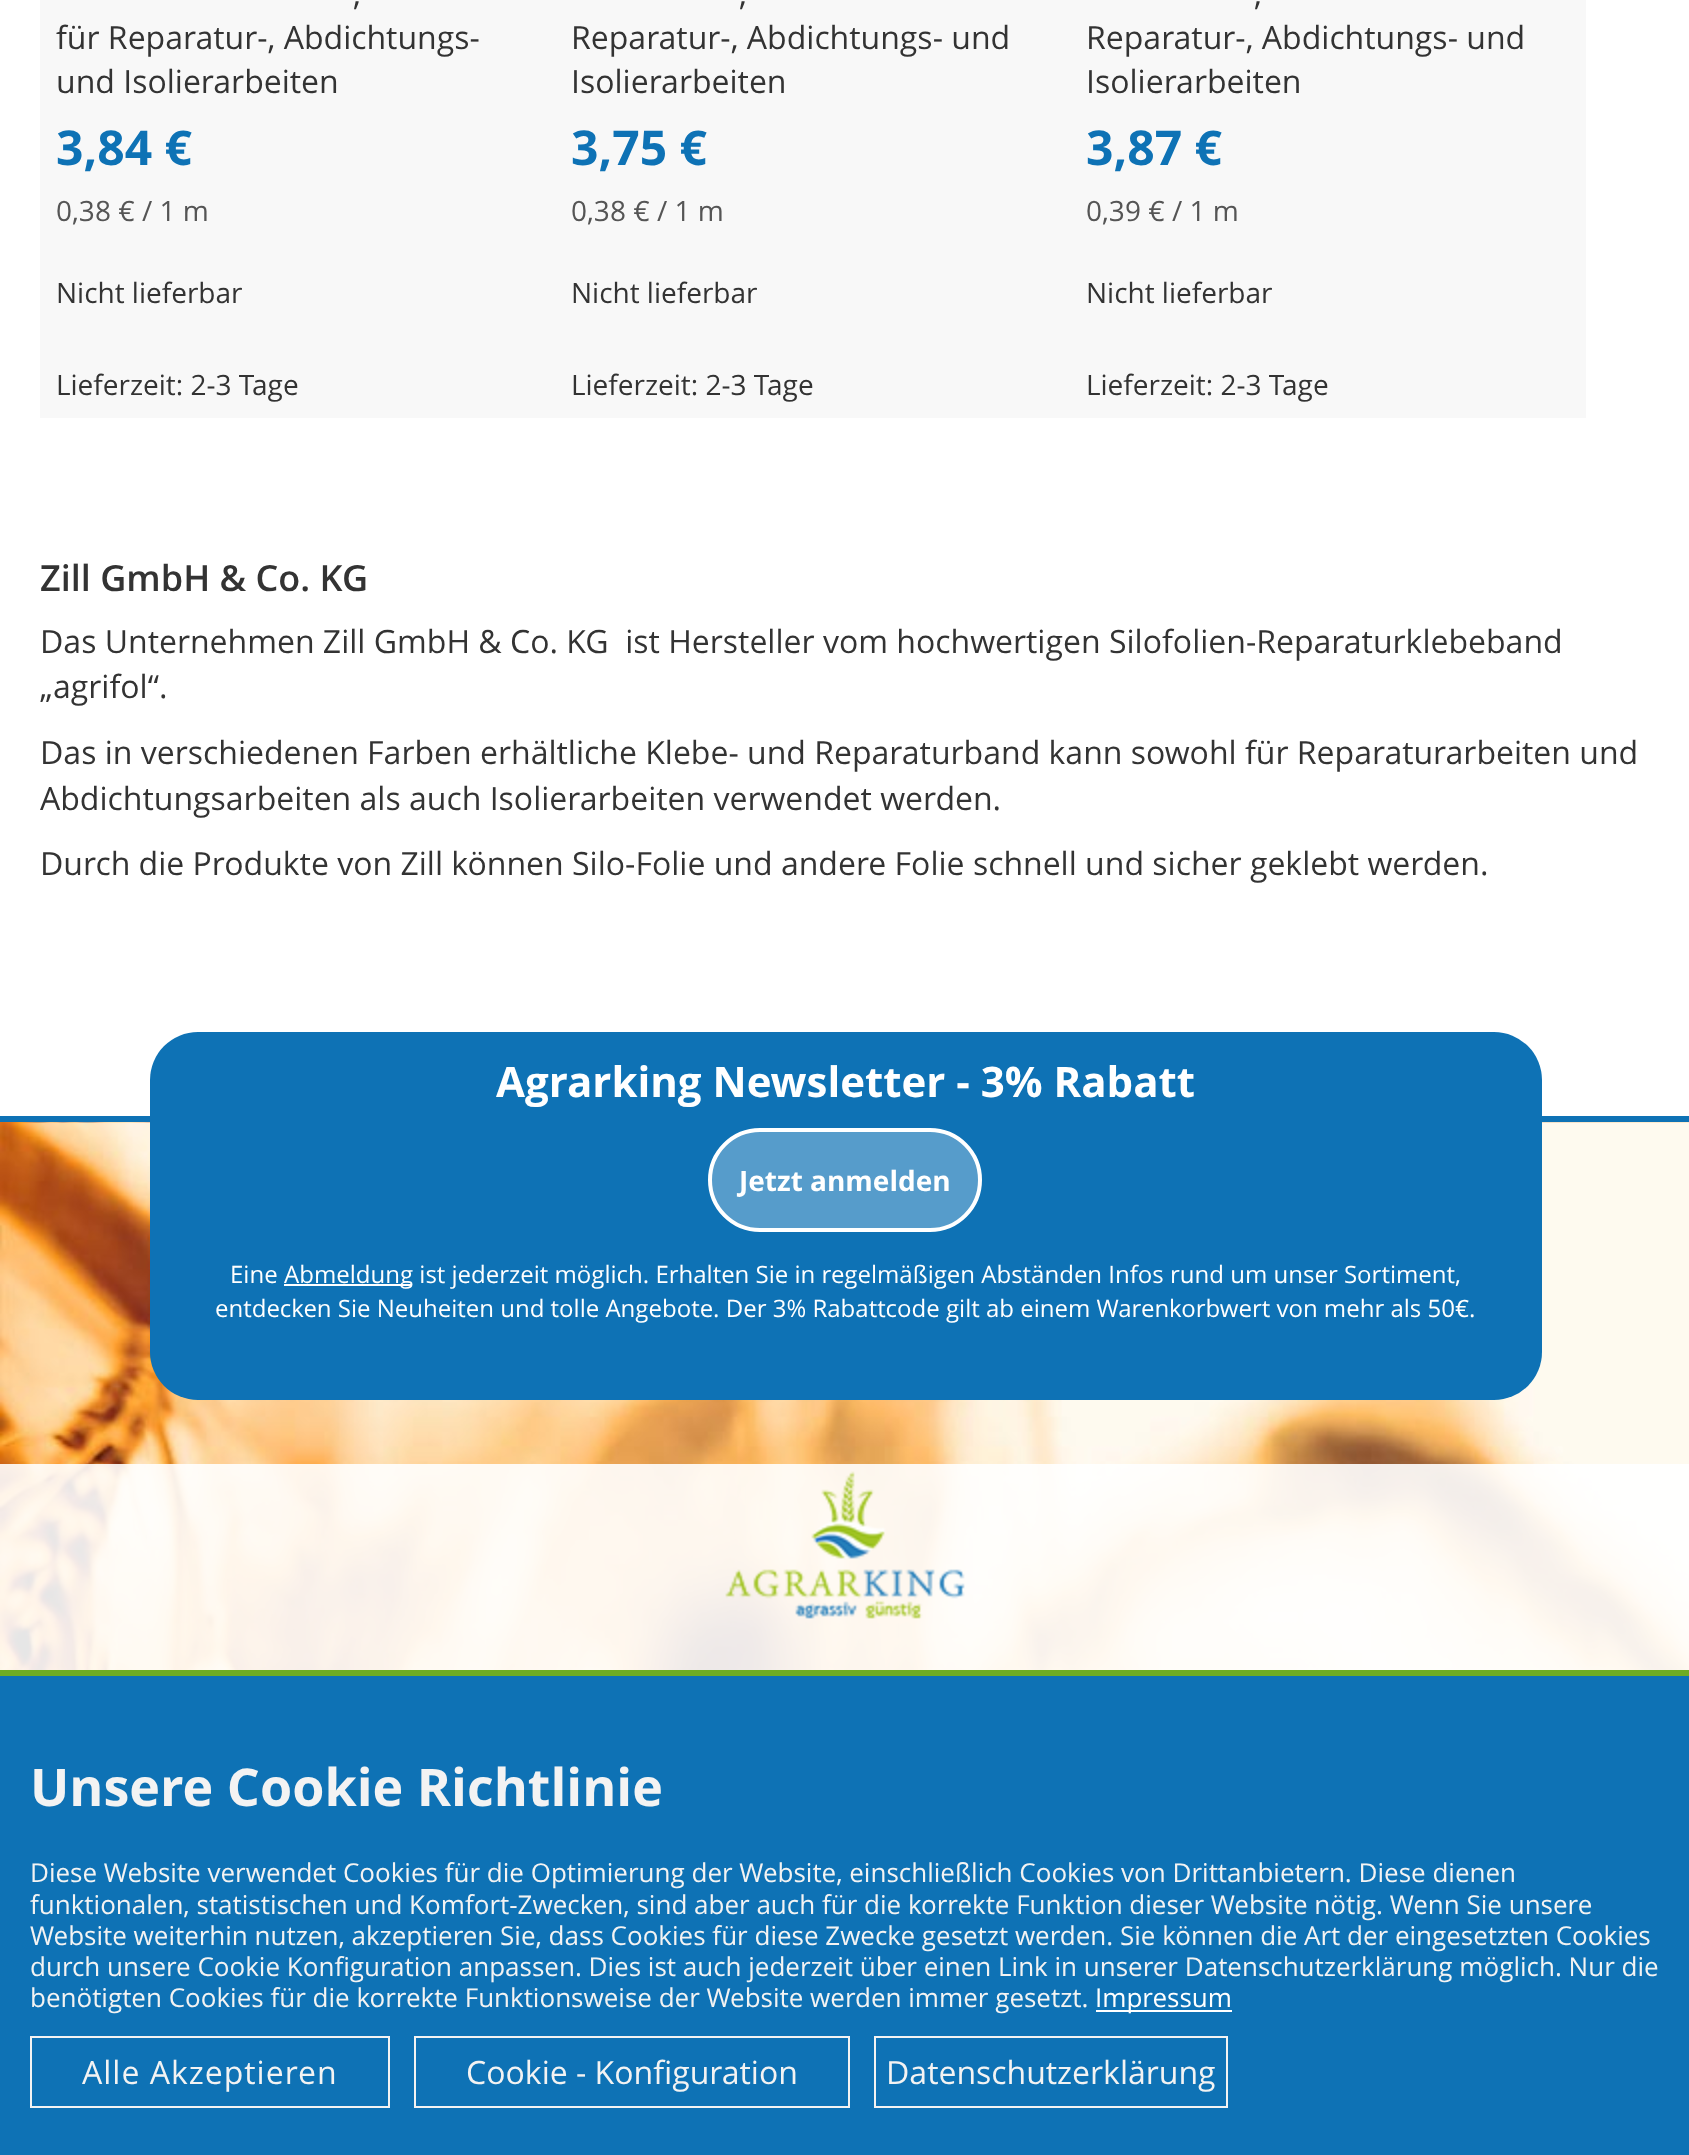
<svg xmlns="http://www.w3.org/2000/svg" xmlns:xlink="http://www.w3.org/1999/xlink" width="1689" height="2155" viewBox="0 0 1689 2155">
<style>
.cls-1{font:32px Open Sans;fill:#333333}
.cls-2{font:bold 48px Open Sans;fill:#0e72b5}
.cls-3{font:28px Open Sans;fill:#555555}
.cls-4{font:28px Open Sans;fill:#333333}
.cls-5{font:600 36px Open Sans;fill:#333333}
.cls-6{font:bold 42px Open Sans;fill:#ffffff}
.cls-7{font:bold 28px Open Sans;fill:#ffffff}
.cls-8{font:24px Open Sans;fill:#ffffff}
.cls-9{font:bold 52px Open Sans;fill:#f3f3f3}
.cls-10{font:26px Open Sans;fill:#f3f3f3}
.cls-11{font:26px Open Sans;fill:#ffffff}
.cls-12{font:32px Open Sans;letter-spacing:1px;fill:#f3f3f3}
.cls-13{font:32px Open Sans;fill:#f3f3f3}
</style>
<rect width="100%" height="100%" fill="#ffffff"/>
<rect fill="#f8f8f8" x="40" y="0" width="1546" height="418"/>
<image xlink:href="image0.png" x="0" y="1122" width="1689" height="548"/>
<rect fill="#0e72b5" x="0" y="1116" width="1689" height="6"/>
<rect fill="#0e72b5" x="150" y="1032" width="1392" height="368" rx="48"/>
<rect fill="#569ccb" stroke="#ffffff" stroke-width="4" x="710" y="1130" width="270" height="100" rx="50"/>
<rect fill="#ffffff" x="284" y="1284" width="128" height="2"/>
<rect fill="#ffffff" fill-opacity="0.9" x="0" y="1464" width="1689" height="206"/>
<image xlink:href="image1.png" x="725" y="1471" width="240" height="148"/>
<rect fill="#0e72b5" x="0" y="1676" width="1689" height="479"/>
<rect fill="#6eac24" x="0" y="1670" width="1689" height="6"/>
<rect fill="#ffffff" x="1096" y="2010" width="136" height="2"/>
<rect fill="none" stroke="#f3f3f3" stroke-width="2" x="31" y="2037" width="358" height="70"/>
<rect fill="none" stroke="#f3f3f3" stroke-width="2" x="415" y="2037" width="434" height="70"/>
<rect fill="none" stroke="#f3f3f3" stroke-width="2" x="875" y="2037" width="352" height="70"/>
<text class="cls-1" x="353" y="5">,</text>
<text class="cls-1"><tspan x="56" y="49">für Reparatur-, Abdichtungs-</tspan><tspan x="56" y="93">und Isolierarbeiten</tspan></text>
<text class="cls-2" x="56" y="165">3,84 €</text>
<text class="cls-3" x="56" y="221">0,38 € / 1 m</text>
<text class="cls-4" x="56" y="303">Nicht lieferbar</text>
<text class="cls-4" x="56" y="395">Lieferzeit: 2-3 Tage</text>
<text class="cls-1" x="739" y="5">,</text>
<text class="cls-1"><tspan x="571" y="49">Reparatur-, Abdichtungs- und</tspan><tspan x="571" y="93">Isolierarbeiten</tspan></text>
<text class="cls-2" x="571" y="165">3,75 €</text>
<text class="cls-3" x="571" y="221">0,38 € / 1 m</text>
<text class="cls-4" x="571" y="303">Nicht lieferbar</text>
<text class="cls-4" x="571" y="395">Lieferzeit: 2-3 Tage</text>
<text class="cls-1" x="1254" y="5">,</text>
<text class="cls-1"><tspan x="1086" y="49">Reparatur-, Abdichtungs- und</tspan><tspan x="1086" y="93">Isolierarbeiten</tspan></text>
<text class="cls-2" x="1086" y="165">3,87 €</text>
<text class="cls-3" x="1086" y="221">0,39 € / 1 m</text>
<text class="cls-4" x="1086" y="303">Nicht lieferbar</text>
<text class="cls-4" x="1086" y="395">Lieferzeit: 2-3 Tage</text>
<text class="cls-5" x="40" y="591">Zill GmbH &amp; Co. KG</text>
<text class="cls-1" xml:space="preserve"><tspan x="40" y="653">Das Unternehmen Zill GmbH &amp; Co. KG  ist Hersteller vom hochwertigen Silofolien-Reparaturklebeband</tspan><tspan x="40" y="698">„agrifol“.</tspan></text>
<text class="cls-1"><tspan x="40" y="764">Das in verschiedenen Farben erhältliche Klebe- und Reparaturband kann sowohl für Reparaturarbeiten und</tspan><tspan x="40" y="810">Abdichtungsarbeiten als auch Isolierarbeiten verwendet werden.</tspan></text>
<text class="cls-1" x="40" y="875">Durch die Produkte von Zill können Silo-Folie und andere Folie schnell und sicher geklebt werden.</text>
<text class="cls-6" x="496" y="1097">Agrarking Newsletter - 3% Rabatt</text>
<text class="cls-7" x="739" y="1191">Jetzt anmelden</text>
<text class="cls-8" x="230" y="1283">Eine</text>
<text class="cls-8" x="284" y="1283">Abmeldung ist jederzeit möglich. Erhalten Sie in regelmäßigen Abständen Infos rund um unser Sortiment,</text>
<text class="cls-8" x="215" y="1317">entdecken Sie Neuheiten und tolle Angebote. Der 3% Rabattcode gilt ab einem Warenkorbwert von mehr als 50€.</text>
<text class="cls-9" x="30" y="1806">Unsere Cookie Richtlinie</text>
<text class="cls-10"><tspan x="30" y="1882">Diese Website verwendet Cookies für die Optimierung der Website, einschließlich Cookies von Drittanbietern. Diese dienen</tspan><tspan x="30" y="1914">funktionalen, statistischen und Komfort-Zwecken, sind aber auch für die korrekte Funktion dieser Website nötig. Wenn Sie unsere</tspan><tspan x="30" y="1945">Website weiterhin nutzen, akzeptieren Sie, dass Cookies für diese Zwecke gesetzt werden. Sie können die Art der eingesetzten Cookies</tspan><tspan x="30" y="1976">durch unsere Cookie Konfiguration anpassen. Dies ist auch jederzeit über einen Link in unserer Datenschutzerklärung möglich. Nur die</tspan><tspan x="30" y="2007">benötigten Cookies für die korrekte Funktionsweise der Website werden immer gesetzt.</tspan></text>
<text class="cls-11" x="1095" y="2007">Impressum</text>
<text class="cls-12" x="82" y="2084">Alle Akzeptieren</text>
<text class="cls-13" x="466" y="2084">Cookie - Konfiguration</text>
<text class="cls-13" x="886" y="2084">Datenschutzerklärung</text>
</svg>
